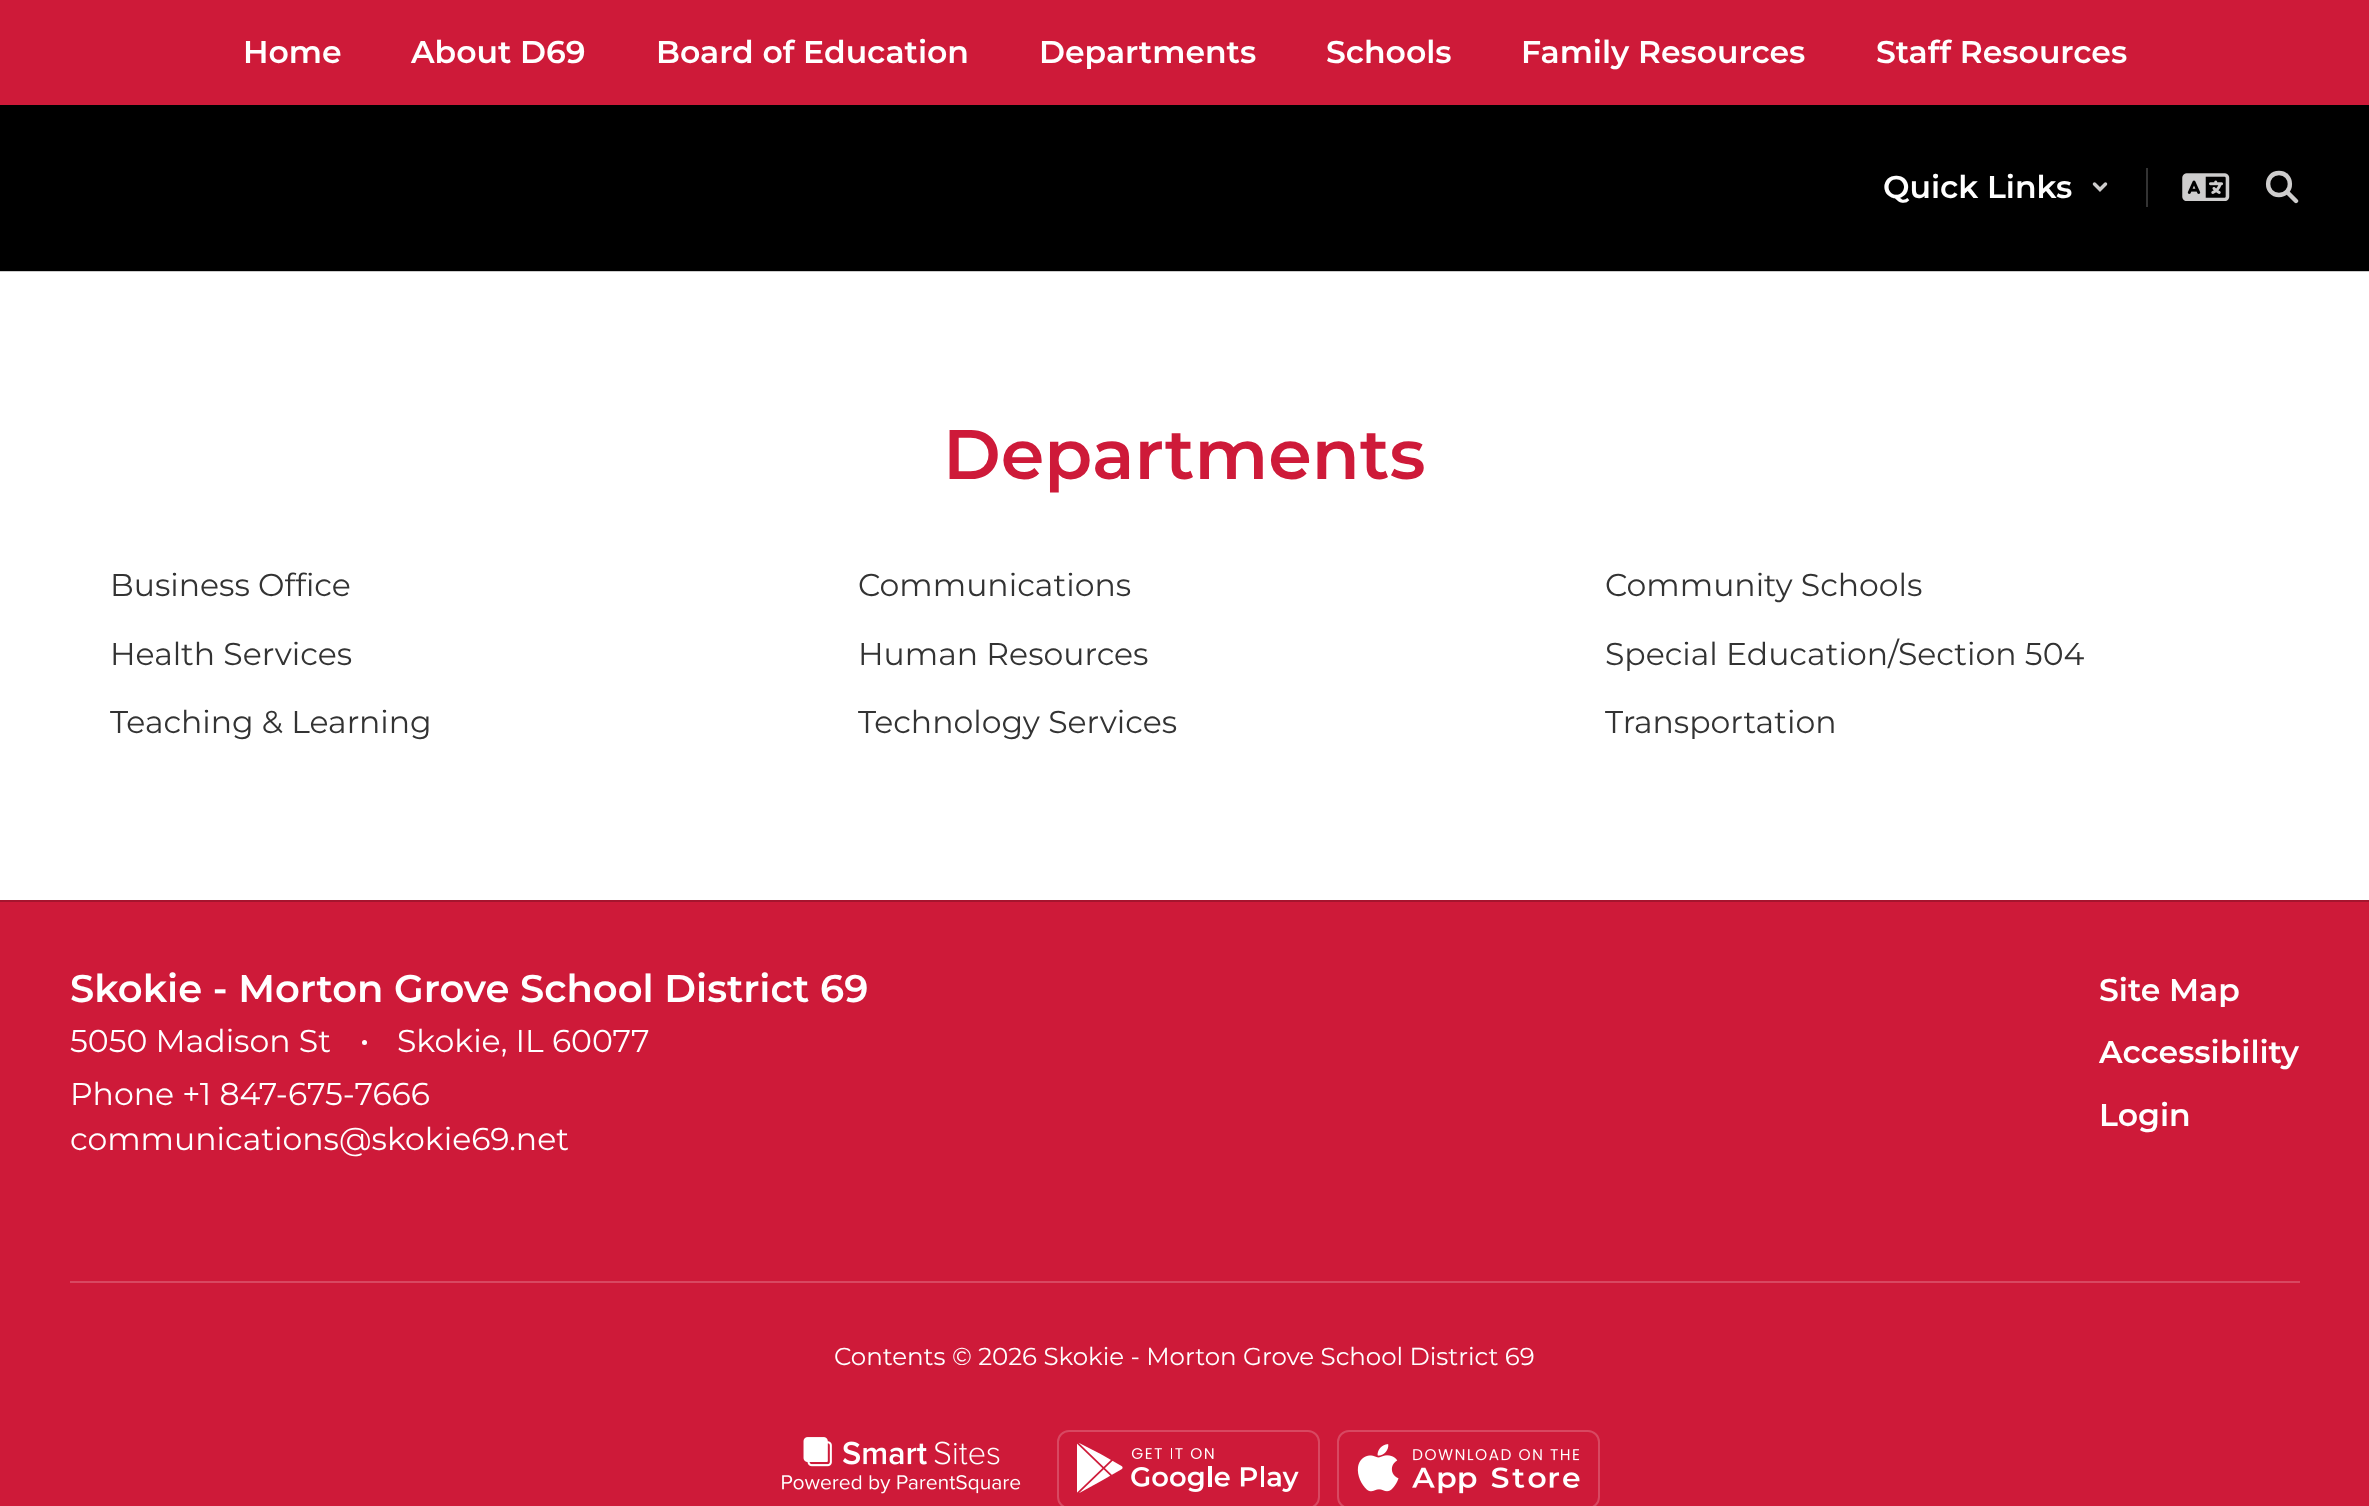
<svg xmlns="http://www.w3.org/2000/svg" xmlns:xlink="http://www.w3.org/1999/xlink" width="2369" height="1506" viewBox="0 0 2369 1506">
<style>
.cls-1{font:600 31.5px Montserrat;fill:#ffffff}
.cls-2{font:600 70px Montserrat;fill:#ce1a39}
.cls-3{font:31.5px Montserrat;fill:#333333}
.cls-4{font:600 38.5px Montserrat;fill:#ffffff}
.cls-5{font:31.5px Montserrat;fill:#ffffff}
.cls-6{font:24.5px Montserrat;fill:#ffffff}
</style>
<rect width="100%" height="100%" fill="#ffffff"/>
<rect fill="#cccccc" x="0" y="271" width="2369" height="1"/>
<rect fill="#ce1a39" x="0" y="0" width="2369" height="105"/>
<rect fill="#000000" x="0" y="105" width="2369" height="166"/>
<rect fill="#333333" x="2146" y="168" width="2" height="39"/>
<path fill="none" stroke="#cecdcd" stroke-width="3.5" stroke-linecap="round" d="M2094.5 184L2100 189.5L2105.5 184"/>
<image xlink:href="image0.png" x="2182" y="173" width="48" height="28"/>
<path fill="none" stroke="#cecdcd" stroke-width="4.4" stroke-linecap="square" stroke-linejoin="round" d="M2279 195C2293.5 195 2293.5 173 2279 173C2264.5 173 2264.5 195 2279 195Z"/>
<path fill="none" stroke="#cecdcd" stroke-width="4.4" stroke-linecap="round" stroke-linejoin="round" d="M2296 201L2287 192"/>
<rect fill="#a5152e" x="0" y="900" width="2369" height="2"/>
<rect fill="#ce1a39" x="0" y="902" width="2369" height="604"/>
<circle fill="#ffffff" cx="364.5" cy="1042.5" r="2.5"/>
<rect fill="#d84861" x="70" y="1281" width="2230" height="2"/>
<image xlink:href="image1.png" x="782" y="1437" width="239" height="57"/>
<rect fill="none" stroke="#d84861" stroke-width="2" x="1058" y="1431" width="261" height="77" rx="11"/>
<image xlink:href="image2.png" x="1077" y="1442" width="222" height="51"/>
<rect fill="none" stroke="#d84861" stroke-width="2" x="1338" y="1431" width="261" height="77" rx="11"/>
<image xlink:href="image3.png" x="1357" y="1444" width="223" height="50"/>
<text class="cls-1" x="243" y="63">Home</text>
<text class="cls-1" x="411" y="63">About D69</text>
<text class="cls-1" x="656" y="63">Board of Education</text>
<text class="cls-1" x="1039" y="63">Departments</text>
<text class="cls-1" x="1326" y="63">Schools</text>
<text class="cls-1" x="1521" y="63">Family Resources</text>
<text class="cls-1" x="1876" y="63">Staff Resources</text>
<text class="cls-1" x="1883" y="198">Quick Links</text>
<text class="cls-2" x="943" y="479">Departments</text>
<text class="cls-3" x="110" y="596">Business Office</text>
<text class="cls-3" x="858" y="596">Communications</text>
<text class="cls-3" x="1605" y="596">Community Schools</text>
<text class="cls-3" x="110" y="665">Health Services</text>
<text class="cls-3" x="858" y="665">Human Resources</text>
<text class="cls-3" x="1605" y="665">Special Education/Section 504</text>
<text class="cls-3" x="110" y="733">Teaching &amp; Learning</text>
<text class="cls-3" x="858" y="733">Technology Services</text>
<text class="cls-3" x="1605" y="733">Transportation</text>
<text class="cls-4" x="70" y="1002">Skokie - Morton Grove School District 69</text>
<text class="cls-5" x="70" y="1052">5050 Madison St</text>
<text class="cls-5" x="397" y="1052">Skokie, IL 60077</text>
<text class="cls-5"><tspan x="70" y="1105">Phone +1 847-675-7666</tspan><tspan x="70" y="1150">communications@skokie69.net</tspan></text>
<text class="cls-1"><tspan x="2099" y="1001">Site Map</tspan><tspan x="2099" y="1063">Accessibility</tspan></text>
<text class="cls-1" x="2099" y="1126">Login</text>
<text class="cls-6" x="834" y="1365">Contents © 2026 Skokie - Morton Grove School District 69</text>
</svg>
